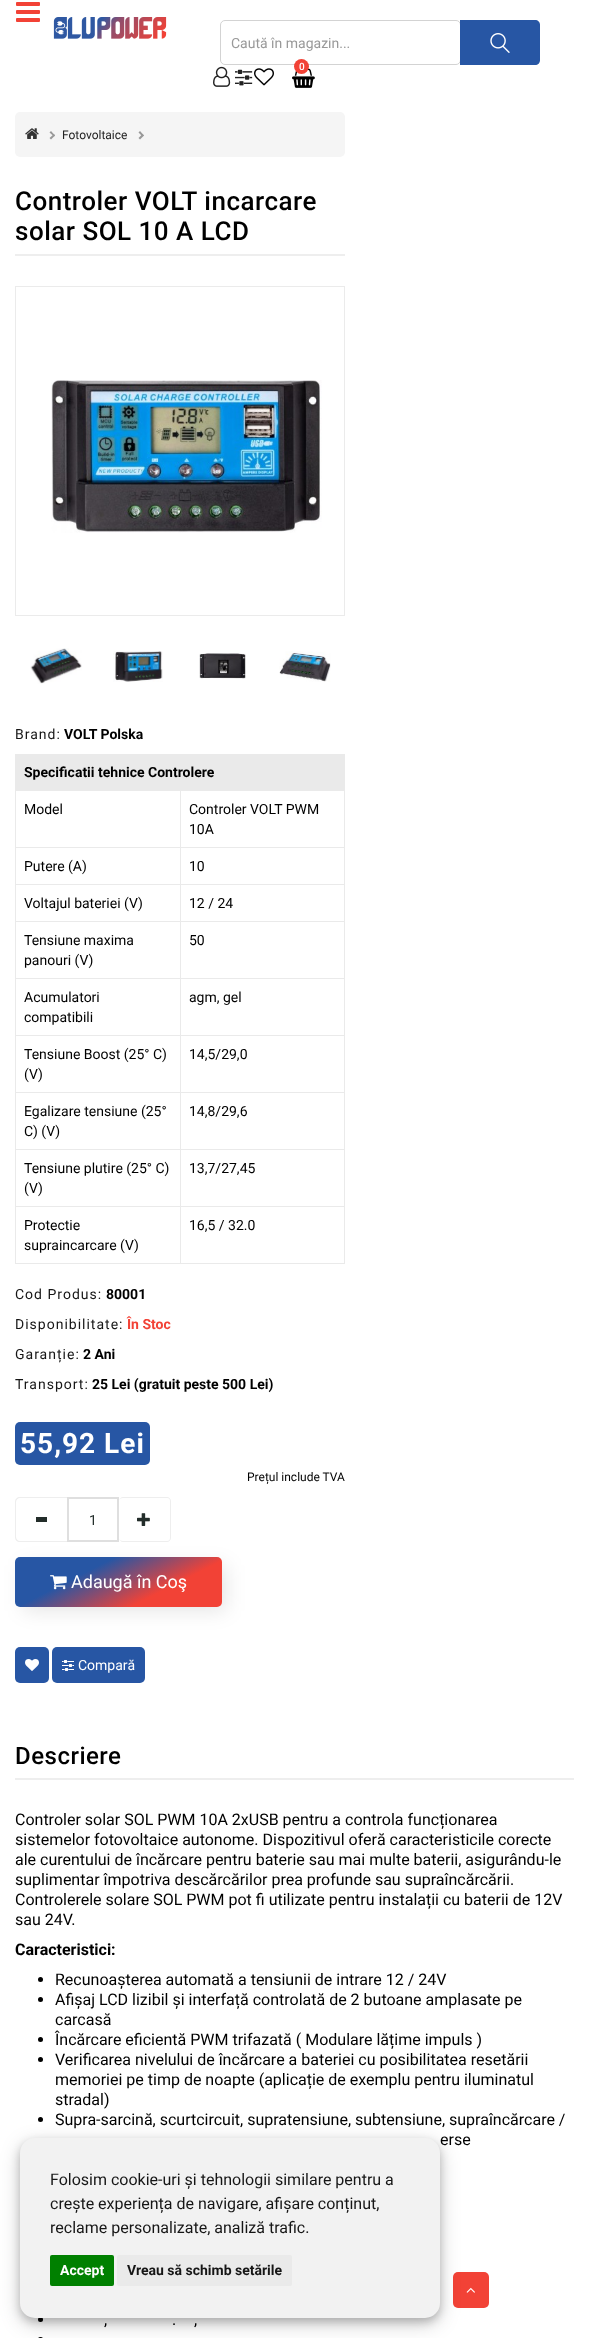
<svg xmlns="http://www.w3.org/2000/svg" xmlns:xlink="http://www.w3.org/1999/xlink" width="589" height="2338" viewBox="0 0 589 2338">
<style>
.cls-1{font:14px Roboto;fill:#999999}
.cls-2{font:500 10px Roboto;fill:#ffffff}
.cls-3{font:12px Roboto;fill:#222222}
.cls-4{font:500 26px Roboto;letter-spacing:0.5px;fill:#000000}
.cls-5{font:14px Roboto;letter-spacing:1px;fill:#161616}
.cls-6{font:bold 14px Roboto;fill:#000000}
.cls-7{font:14px Roboto;fill:#000000}
.cls-8{font:bold 14px Roboto;fill:#f24236}
.cls-9{font:bold 28px Roboto;letter-spacing:1px;fill:#ffffff}
.cls-10{font:12px Roboto;fill:#000000}
.cls-11{font:14px Roboto;fill:#232d2a}
.cls-12{font:18px Roboto;fill:#ffffff}
.cls-13{font:14px Roboto;fill:#ffffff}
.cls-14{font:500 24px Roboto;letter-spacing:0.5px;fill:#000000}
.cls-15{font:16px Roboto;fill:#000000}
.cls-16{font:bold 16px Roboto;fill:#000000}
.cls-17{font:16px Roboto;fill:#161616}
.cls-18{font:bold 14px Roboto;fill:#ffffff}
.cls-19{font:bold 14px Roboto;fill:#161616}
</style>
<defs>
<linearGradient id="g1" gradientUnits="userSpaceOnUse" x1="87" y1="1520" x2="150" y2="1644"><stop offset="0.33" stop-color="#2756a4"/><stop offset="0.7" stop-color="#f24236"/></linearGradient>
</defs>
<rect width="100%" height="100%" fill="#ffffff"/>
<image xlink:href="image0.png" x="16" y="2" width="24" height="20"/>
<image xlink:href="image1.png" x="53" y="17" width="114" height="22"/>
<rect fill="none" stroke="#d3d3d3" x="220.5" y="20.5" width="240" height="44" rx="4.5"/>
<path fill="#2756a4" d="M460 20H535C538 20 540 22 540 25V60C540 63 538 65 535 65H460Z"/>
<image xlink:href="image2.png" x="490" y="33" width="20" height="20"/>
<image xlink:href="image3.png" x="213" y="66" width="18" height="21"/>
<image xlink:href="image4.png" x="235" y="69" width="18" height="17"/>
<image xlink:href="image5.png" x="254" y="68" width="20" height="18"/>
<image xlink:href="image6.png" x="292" y="68" width="23" height="20"/>
<circle fill="#f24236" cx="301.5" cy="66.5" r="7.5"/>
<rect fill="#f5f5f5" x="15" y="112" width="330" height="45" rx="5"/>
<image xlink:href="image7.png" x="25" y="128" width="14" height="11"/>
<path fill="#999999" d="M49.5 132.5L51 131L55 135.5L54 136.5Z"/>
<path fill="#999999" d="M49.5 138L54 134L55 135.5L51 139.5Z"/>
<path fill="#999999" d="M138.5 132.5L140 131L144 135.5L142.5 136.5Z"/>
<path fill="#999999" d="M138.5 138L142.5 134L144 135.5L140 139.5Z"/>
<rect fill="#eeeeee" x="15" y="254" width="330" height="2"/>
<rect fill="none" stroke="#ebebeb" x="15.5" y="286.5" width="329" height="329"/>
<image xlink:href="image8.png" x="51" y="380" width="271" height="153"/>
<image xlink:href="image9.png" x="30" y="648" width="52" height="36"/>
<image xlink:href="image10.png" x="113" y="651" width="50" height="31"/>
<image xlink:href="image11.png" x="199" y="653" width="47" height="26"/>
<image xlink:href="image12.png" x="279" y="651" width="52" height="31"/>
<rect fill="#eaeaea" x="16" y="754" width="329" height="36"/>
<rect fill="#eaeaea" x="344" y="790" width="1" height="474"/>
<rect fill="#eaeaea" x="180" y="1263" width="165" height="1"/>
<rect fill="#eaeaea" x="180" y="1206" width="1" height="58"/>
<rect fill="#eaeaea" x="180" y="1206" width="165" height="1"/>
<rect fill="#eaeaea" x="180" y="1149" width="1" height="58"/>
<rect fill="#eaeaea" x="180" y="1149" width="165" height="1"/>
<rect fill="#eaeaea" x="180" y="1092" width="1" height="58"/>
<rect fill="#eaeaea" x="180" y="1092" width="165" height="1"/>
<rect fill="#eaeaea" x="180" y="1035" width="1" height="58"/>
<rect fill="#eaeaea" x="180" y="1035" width="165" height="1"/>
<rect fill="#eaeaea" x="180" y="978" width="1" height="58"/>
<rect fill="#eaeaea" x="180" y="978" width="165" height="1"/>
<rect fill="#eaeaea" x="180" y="921" width="1" height="58"/>
<rect fill="#eaeaea" x="180" y="921" width="165" height="1"/>
<rect fill="#eaeaea" x="180" y="884" width="1" height="38"/>
<rect fill="#eaeaea" x="180" y="884" width="165" height="1"/>
<rect fill="#eaeaea" x="180" y="847" width="1" height="38"/>
<rect fill="#eaeaea" x="180" y="847" width="165" height="1"/>
<rect fill="#eaeaea" x="180" y="790" width="1" height="58"/>
<rect fill="#eaeaea" x="15" y="1263" width="166" height="1"/>
<rect fill="#eaeaea" x="15" y="1206" width="1" height="58"/>
<rect fill="#eaeaea" x="15" y="1206" width="166" height="1"/>
<rect fill="#eaeaea" x="15" y="1149" width="1" height="58"/>
<rect fill="#eaeaea" x="15" y="1149" width="166" height="1"/>
<rect fill="#eaeaea" x="15" y="1092" width="1" height="58"/>
<rect fill="#eaeaea" x="15" y="1092" width="166" height="1"/>
<rect fill="#eaeaea" x="15" y="1035" width="1" height="58"/>
<rect fill="#eaeaea" x="15" y="1035" width="166" height="1"/>
<rect fill="#eaeaea" x="15" y="978" width="1" height="58"/>
<rect fill="#eaeaea" x="15" y="978" width="166" height="1"/>
<rect fill="#eaeaea" x="15" y="921" width="1" height="58"/>
<rect fill="#eaeaea" x="15" y="921" width="166" height="1"/>
<rect fill="#eaeaea" x="15" y="884" width="1" height="38"/>
<rect fill="#eaeaea" x="15" y="884" width="166" height="1"/>
<rect fill="#eaeaea" x="15" y="847" width="1" height="38"/>
<rect fill="#eaeaea" x="15" y="847" width="166" height="1"/>
<rect fill="#eaeaea" x="15" y="790" width="1" height="58"/>
<rect fill="#eaeaea" x="15" y="790" width="330" height="1"/>
<rect fill="#eaeaea" x="15" y="754" width="1" height="37"/>
<rect fill="#2756a4" x="15" y="1422" width="135" height="43" rx="5"/>
<rect fill="#000000" fill-opacity="0.1" filter="blur(10px)" x="23" y="1565" width="203" height="46" rx="3"/>
<path fill="#eeeeee" fill-rule="evenodd" d="M20 1497H67V1542H20C17 1542 15 1540 15 1537V1502C15 1499 17 1497 20 1497ZM20 1498H67V1541H20C18 1541 16 1539 16 1537V1502C16 1500 18 1498 20 1498Z"/>
<rect fill="#232d2a" x="36" y="1517" width="11" height="5"/>
<rect fill="none" stroke="#dfdfdf" stroke-width="2" x="68" y="1498" width="50" height="43"/>
<path fill="#eeeeee" fill-rule="evenodd" d="M123 1497H167C169 1497 171 1499 171 1501V1538C171 1540 169 1542 167 1542H123C121 1542 119 1540 119 1538V1501C119 1499 121 1497 123 1497ZM123 1498H167C169 1498 170 1499 170 1501V1538C170 1540 169 1541 167 1541H123C121 1541 119 1540 119 1538V1501C119 1499 121 1498 123 1498Z"/>
<image xlink:href="image13.png" x="137" y="1513" width="13" height="13"/>
<rect fill="url(#g1)" x="15" y="1557" width="207" height="50" rx="5"/>
<image xlink:href="image14.png" x="50" y="1575" width="17" height="15"/>
<rect fill="#2756a4" x="15" y="1647" width="34" height="36" rx="5"/>
<image xlink:href="image15.png" x="25" y="1659" width="14" height="12"/>
<rect fill="#2756a4" x="52" y="1647" width="93" height="36" rx="5"/>
<image xlink:href="image16.png" x="62" y="1660" width="12" height="11"/>
<rect fill="#eeeeee" x="15" y="1778" width="559" height="2"/>
<circle fill="#000000" cx="40.5" cy="1979.5" r="2.5"/>
<circle fill="#000000" cx="40.5" cy="1999.5" r="2.5"/>
<circle fill="#000000" cx="40.5" cy="2039.5" r="2.5"/>
<circle fill="#000000" cx="40.5" cy="2059.5" r="2.5"/>
<circle fill="#000000" cx="40.5" cy="2119.5" r="2.5"/>
<circle fill="#000000" cx="40.5" cy="2319.5" r="2.5"/>
<rect fill="#000000" x="38" y="2337" width="5" height="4" rx="2.5"/>
<rect fill="#f24236" x="453" y="2272" width="36" height="36" rx="5"/>
<image xlink:href="image17.png" x="466" y="2287" width="9" height="6"/>
<rect fill="#000000" fill-opacity="0.19" filter="blur(10px)" x="20" y="2144" width="420" height="180" rx="15"/>
<rect fill="#000000" fill-opacity="0.2" filter="blur(4px)" x="20" y="2142" width="420" height="180" rx="15"/>
<rect fill="#f2f2f2" x="20" y="2138" width="420" height="180" rx="15"/>
<rect fill="#008000" x="50" y="2255" width="64" height="31" rx="2"/>
<rect fill="#eaeaea" x="117" y="2255" width="175" height="31" rx="2"/>
<text class="cls-1" x="231" y="48">Caută în magazin...</text>
<text class="cls-2" x="299" y="70">0</text>
<text class="cls-3" x="62" y="139">Fotovoltaice</text>
<text class="cls-4"><tspan x="15" y="210">Controler VOLT incarcare</tspan><tspan x="15" y="240">solar SOL 10 A LCD</tspan></text>
<text class="cls-5" x="15" y="739">Brand:</text>
<text class="cls-6" x="64" y="739">VOLT Polska</text>
<text class="cls-6" x="24" y="777">Specificatii tehnice Controlere</text>
<text class="cls-7" x="24" y="814">Model</text>
<text class="cls-7"><tspan x="189" y="814">Controler VOLT PWM</tspan><tspan x="189" y="834">10A</tspan></text>
<text class="cls-7" x="24" y="871">Putere (A)</text>
<text class="cls-7" x="189" y="871">10</text>
<text class="cls-7" x="24" y="908">Voltajul bateriei (V)</text>
<text class="cls-7" x="189" y="908">12 / 24</text>
<text class="cls-7"><tspan x="24" y="945">Tensiune maxima</tspan><tspan x="24" y="965">panouri (V)</tspan></text>
<text class="cls-7" x="189" y="945">50</text>
<text class="cls-7"><tspan x="24" y="1002">Acumulatori</tspan><tspan x="24" y="1022">compatibili</tspan></text>
<text class="cls-7" x="189" y="1002">agm, gel</text>
<text class="cls-7"><tspan x="24" y="1059">Tensiune Boost (25° C)</tspan><tspan x="24" y="1079">(V)</tspan></text>
<text class="cls-7" x="189" y="1059">14,5/29,0</text>
<text class="cls-7"><tspan x="24" y="1116">Egalizare tensiune (25°</tspan><tspan x="24" y="1136">C) (V)</tspan></text>
<text class="cls-7" x="189" y="1116">14,8/29,6</text>
<text class="cls-7"><tspan x="24" y="1173">Tensiune plutire (25° C)</tspan><tspan x="24" y="1193">(V)</tspan></text>
<text class="cls-7" x="189" y="1173">13,7/27,45</text>
<text class="cls-7"><tspan x="24" y="1230">Protectie</tspan><tspan x="24" y="1250">supraincarcare (V)</tspan></text>
<text class="cls-7" x="189" y="1230">16,5 / 32.0</text>
<text class="cls-5" x="15" y="1299">Cod Produs:</text>
<text class="cls-6" x="106" y="1299">80001</text>
<text class="cls-5" x="15" y="1329">Disponibilitate:</text>
<text class="cls-8" x="127" y="1329">În Stoc</text>
<text class="cls-5" x="15" y="1359">Garanție:</text>
<text class="cls-6" x="83" y="1359">2 Ani</text>
<text class="cls-5" x="15" y="1389">Transport:</text>
<text class="cls-6" x="92" y="1389">25 Lei (gratuit peste 500 Lei)</text>
<text class="cls-9" x="20" y="1453">55,92 Lei</text>
<text class="cls-10" x="247" y="1481">Prețul include TVA</text>
<text class="cls-11" x="89" y="1525">1</text>
<text class="cls-12" x="71" y="1588">Adaugă în Coş</text>
<text class="cls-13" x="78" y="1670">Compară</text>
<text class="cls-14" x="15" y="1764">Descriere</text>
<text class="cls-15"><tspan x="15" y="1825">Controler solar SOL PWM 10A 2xUSB pentru a controla funcționarea</tspan><tspan x="15" y="1845">sistemelor fotovoltaice autonome. Dispozitivul oferă caracteristicile corecte</tspan><tspan x="15" y="1865">ale curentului de încărcare pentru baterie sau mai multe baterii, asigurându-le</tspan><tspan x="15" y="1885">suplimentar împotriva descărcărilor prea profunde sau supraîncărcării.</tspan><tspan x="15" y="1905">Controlerele solare SOL PWM pot fi utilizate pentru instalații cu baterii de 12V</tspan><tspan x="15" y="1925">sau 24V.</tspan></text>
<text class="cls-16" x="15" y="1955">Caracteristici:</text>
<text class="cls-15"><tspan x="55" y="1985">Recunoașterea automată a tensiunii de intrare 12 / 24V</tspan><tspan x="55" y="2005">Afișaj LCD lizibil și interfață controlată de 2 butoane amplasate pe</tspan><tspan x="55" y="2025">carcasă</tspan><tspan x="55" y="2045">Încărcare eficientă PWM trifazată ( Modulare lățime impuls )</tspan><tspan x="55" y="2065">Verificarea nivelului de încărcare a bateriei cu posibilitatea resetării</tspan><tspan x="55" y="2085">memoriei pe timp de noapte (aplicație de exemplu pentru iluminatul</tspan><tspan x="55" y="2105">stradal)</tspan><tspan x="55" y="2125">Supra-sarcină, scurtcircuit, supratensiune, subtensiune, supraîncărcare /</tspan></text>
<text class="cls-15" x="440" y="2145">erse</text>
<text class="cls-15" x="104" y="2325">,</text>
<text class="cls-15" x="172" y="2325">.</text>
<text class="cls-15" x="194" y="2325">,</text>
<text class="cls-17"><tspan x="50" y="2185">Folosim cookie-uri și tehnologii similare pentru a</tspan><tspan x="50" y="2209">crește experiența de navigare, afișare conținut,</tspan><tspan x="50" y="2233">reclame personalizate, analiză trafic.</tspan></text>
<text class="cls-18" x="60" y="2275">Accept</text>
<text class="cls-19" x="127" y="2275">Vreau să schimb setările</text>
</svg>
